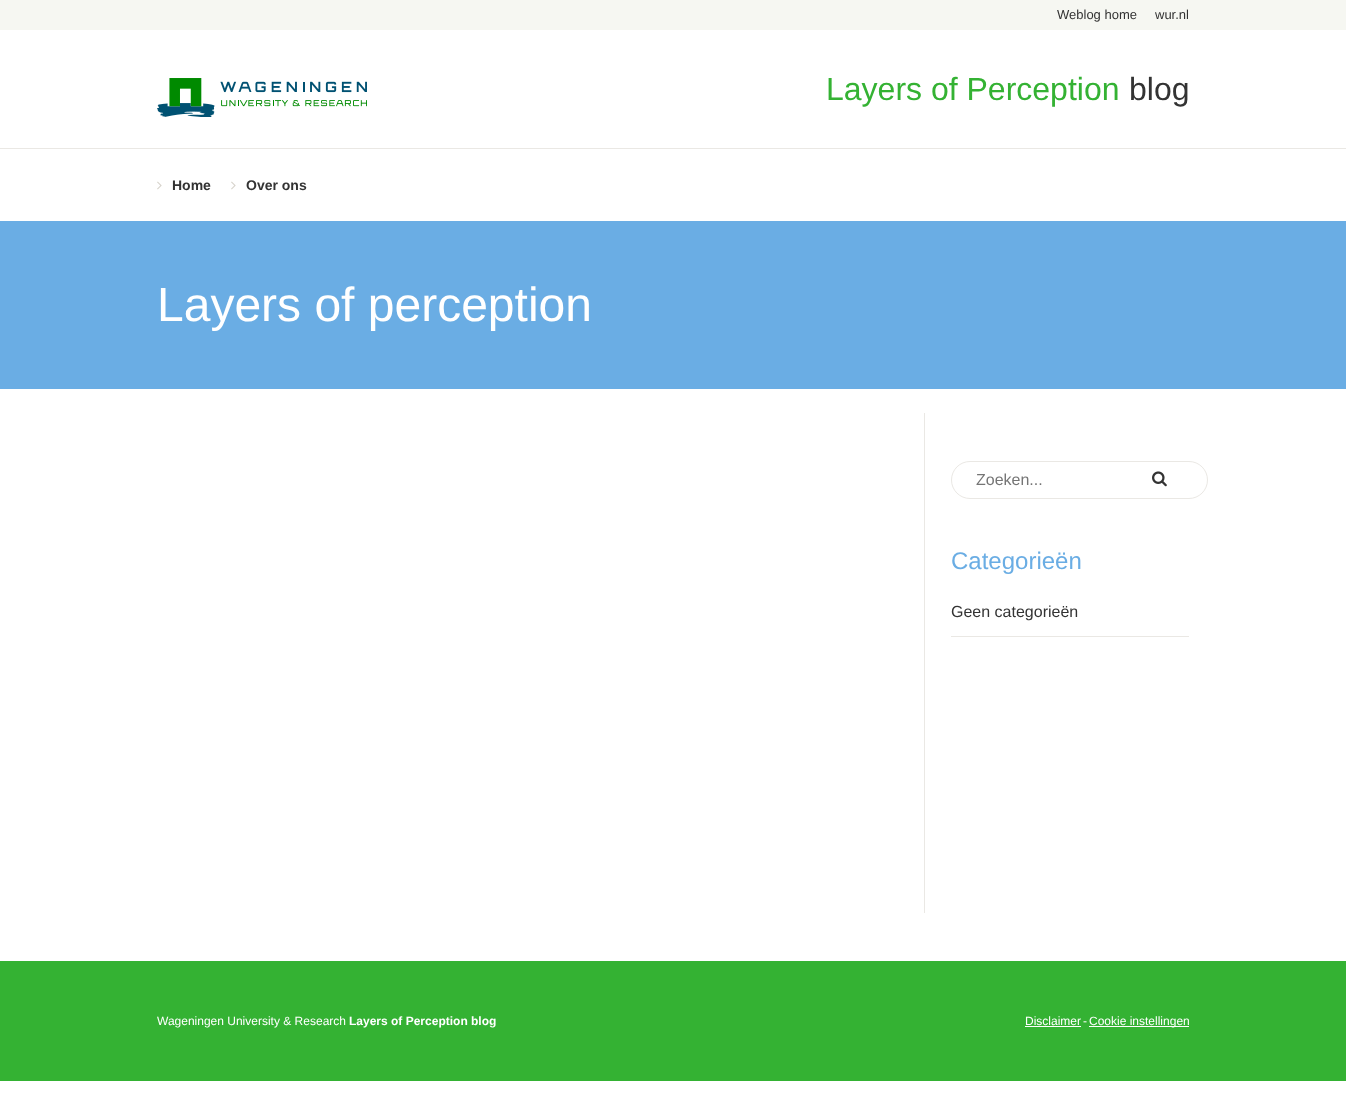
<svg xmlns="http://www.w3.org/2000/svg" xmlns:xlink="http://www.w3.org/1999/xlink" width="1346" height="1098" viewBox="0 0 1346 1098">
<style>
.cls-1{font:13px Liberation Sans;fill:#333333}
.cls-2{font:32px Liberation Sans;fill:#34b233}
.cls-3{font:32px Liberation Sans;fill:#333333}
.cls-4{font:bold 14px Liberation Sans;fill:#333333}
.cls-5{font:48px Liberation Sans;fill:#ffffff}
.cls-6{font:16px Liberation Sans;fill:#757575}
.cls-7{font:24px Liberation Sans;fill:#6aade4}
.cls-8{font:16px Liberation Sans;fill:#333333}
.cls-9{font:12px Liberation Sans;fill:#ffffff}
.cls-10{font:bold 12px Liberation Sans;fill:#ffffff}
</style>
<rect width="100%" height="100%" fill="#ffffff"/>
<rect fill="#f6f7f2" x="0" y="0" width="1346" height="30"/>
<rect fill="#eae8e4" x="0" y="148" width="1346" height="1"/>
<image xlink:href="image0.png" x="157" y="78" width="210" height="39"/>
<image xlink:href="image1.png" x="157" y="181" width="5" height="9"/>
<image xlink:href="image1.png" x="231" y="181" width="5" height="9"/>
<rect fill="#6aade4" x="0" y="221" width="1346" height="168"/>
<rect fill="#eae8e4" x="924" y="413" width="1" height="500"/>
<rect fill="none" stroke="#eae8e4" x="951.5" y="461.5" width="256" height="37" rx="18.5"/>
<image xlink:href="image2.png" x="1152" y="471" width="15" height="16"/>
<rect fill="#eae8e4" x="951" y="636" width="238" height="1"/>
<rect fill="#34b233" x="0" y="961" width="1346" height="120"/>
<rect fill="#ffffff" x="1025" y="1026" width="56" height="1"/>
<rect fill="#ffffff" x="1089" y="1026" width="100" height="1"/>
<text class="cls-1" x="1057" y="19">Weblog home</text>
<text class="cls-1" x="1155" y="19">wur.nl</text>
<text class="cls-2" x="826" y="100">Layers of Perception</text>
<text class="cls-3" x="1129" y="100">blog</text>
<text class="cls-4" x="172" y="190">Home</text>
<text class="cls-4" x="246" y="190">Over ons</text>
<text class="cls-5" x="157" y="321">Layers of perception</text>
<text class="cls-6" x="976" y="485">Zoeken...</text>
<text class="cls-7" x="951" y="569">Categorieën</text>
<text class="cls-8" x="951" y="617">Geen categorieën</text>
<text class="cls-9" x="157" y="1025">Wageningen University &amp; Research</text>
<text class="cls-10" x="349" y="1025">Layers of Perception blog</text>
<text class="cls-9" x="1025" y="1025">Disclaimer</text>
<text class="cls-9" x="1083" y="1025">-</text>
<text class="cls-9" x="1089" y="1025">Cookie instellingen</text>
</svg>
